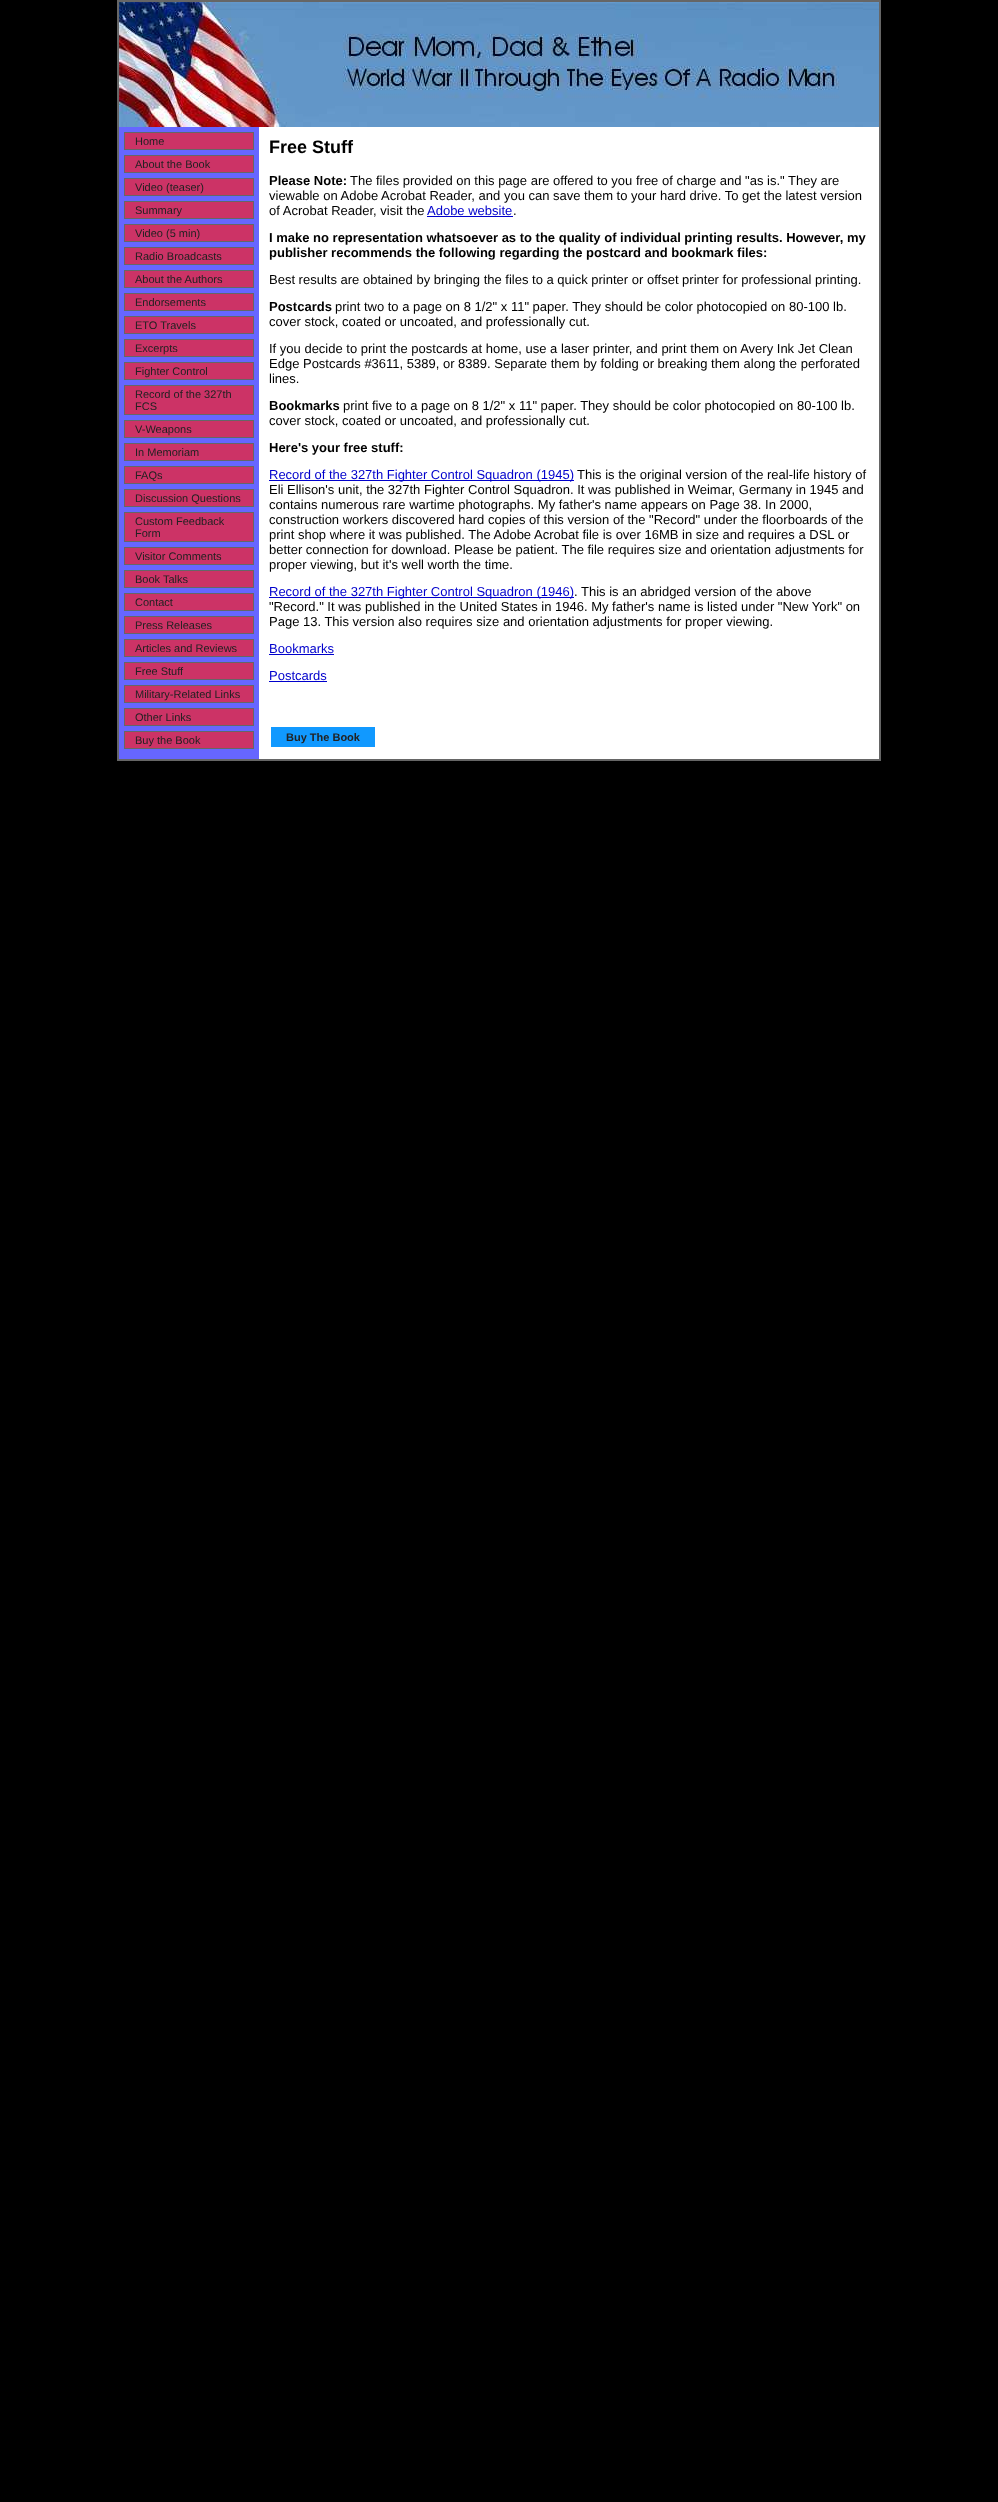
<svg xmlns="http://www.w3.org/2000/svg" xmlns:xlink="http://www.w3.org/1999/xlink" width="998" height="2502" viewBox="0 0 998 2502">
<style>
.cls-1{font:11px Liberation Sans;fill:#222222}
.cls-2{font:bold 18px Liberation Sans;fill:#000000}
.cls-3{font:bold 13px Liberation Sans;fill:#000000}
.cls-4{font:13px Liberation Sans;fill:#000000}
.cls-5{font:13px Liberation Sans;fill:#0000cc}
.cls-6{font:bold 11px Liberation Sans;fill:#222222}
</style>
<rect width="100%" height="100%" fill="#000000"/>
<rect fill="#666666" x="117" y="0" width="764" height="761"/>
<image xlink:href="image0.png" x="119" y="2" width="760" height="125"/>
<rect fill="#6666ff" x="119" y="127" width="140" height="632"/>
<rect fill="#666666" x="124" y="132" width="130" height="18"/>
<rect fill="#cc3366" x="125" y="133" width="128" height="16"/>
<rect fill="#666666" x="124" y="155" width="130" height="18"/>
<rect fill="#cc3366" x="125" y="156" width="128" height="16"/>
<rect fill="#666666" x="124" y="178" width="130" height="18"/>
<rect fill="#cc3366" x="125" y="179" width="128" height="16"/>
<rect fill="#666666" x="124" y="201" width="130" height="18"/>
<rect fill="#cc3366" x="125" y="202" width="128" height="16"/>
<rect fill="#666666" x="124" y="224" width="130" height="18"/>
<rect fill="#cc3366" x="125" y="225" width="128" height="16"/>
<rect fill="#666666" x="124" y="247" width="130" height="18"/>
<rect fill="#cc3366" x="125" y="248" width="128" height="16"/>
<rect fill="#666666" x="124" y="270" width="130" height="18"/>
<rect fill="#cc3366" x="125" y="271" width="128" height="16"/>
<rect fill="#666666" x="124" y="293" width="130" height="18"/>
<rect fill="#cc3366" x="125" y="294" width="128" height="16"/>
<rect fill="#666666" x="124" y="316" width="130" height="18"/>
<rect fill="#cc3366" x="125" y="317" width="128" height="16"/>
<rect fill="#666666" x="124" y="339" width="130" height="18"/>
<rect fill="#cc3366" x="125" y="340" width="128" height="16"/>
<rect fill="#666666" x="124" y="362" width="130" height="18"/>
<rect fill="#cc3366" x="125" y="363" width="128" height="16"/>
<rect fill="#666666" x="124" y="385" width="130" height="30"/>
<rect fill="#cc3366" x="125" y="386" width="128" height="28"/>
<rect fill="#666666" x="124" y="420" width="130" height="18"/>
<rect fill="#cc3366" x="125" y="421" width="128" height="16"/>
<rect fill="#666666" x="124" y="443" width="130" height="18"/>
<rect fill="#cc3366" x="125" y="444" width="128" height="16"/>
<rect fill="#666666" x="124" y="466" width="130" height="18"/>
<rect fill="#cc3366" x="125" y="467" width="128" height="16"/>
<rect fill="#666666" x="124" y="489" width="130" height="18"/>
<rect fill="#cc3366" x="125" y="490" width="128" height="16"/>
<rect fill="#666666" x="124" y="512" width="130" height="30"/>
<rect fill="#cc3366" x="125" y="513" width="128" height="28"/>
<rect fill="#666666" x="124" y="547" width="130" height="18"/>
<rect fill="#cc3366" x="125" y="548" width="128" height="16"/>
<rect fill="#666666" x="124" y="570" width="130" height="18"/>
<rect fill="#cc3366" x="125" y="571" width="128" height="16"/>
<rect fill="#666666" x="124" y="593" width="130" height="18"/>
<rect fill="#cc3366" x="125" y="594" width="128" height="16"/>
<rect fill="#666666" x="124" y="616" width="130" height="18"/>
<rect fill="#cc3366" x="125" y="617" width="128" height="16"/>
<rect fill="#666666" x="124" y="639" width="130" height="18"/>
<rect fill="#cc3366" x="125" y="640" width="128" height="16"/>
<rect fill="#666666" x="124" y="662" width="130" height="18"/>
<rect fill="#cc3366" x="125" y="663" width="128" height="16"/>
<rect fill="#666666" x="124" y="685" width="130" height="18"/>
<rect fill="#cc3366" x="125" y="686" width="128" height="16"/>
<rect fill="#666666" x="124" y="708" width="130" height="18"/>
<rect fill="#cc3366" x="125" y="709" width="128" height="16"/>
<rect fill="#666666" x="124" y="731" width="130" height="18"/>
<rect fill="#cc3366" x="125" y="732" width="128" height="16"/>
<rect fill="#ffffff" x="259" y="127" width="620" height="632"/>
<rect fill="#0000cc" x="427" y="216" width="86" height="1"/>
<rect fill="#0000cc" x="269" y="480" width="305" height="1"/>
<rect fill="#0000cc" x="269" y="597" width="305" height="1"/>
<rect fill="#0000cc" x="269" y="654" width="65" height="1"/>
<rect fill="#0000cc" x="269" y="681" width="58" height="1"/>
<rect fill="#1199ff" x="271" y="727" width="104" height="20"/>
<text class="cls-1" x="135" y="145">Home</text>
<text class="cls-1" x="135" y="168">About the Book</text>
<text class="cls-1" x="135" y="191">Video (teaser)</text>
<text class="cls-1" x="135" y="214">Summary</text>
<text class="cls-1" x="135" y="237">Video (5 min)</text>
<text class="cls-1" x="135" y="260">Radio Broadcasts</text>
<text class="cls-1" x="135" y="283">About the Authors</text>
<text class="cls-1" x="135" y="306">Endorsements</text>
<text class="cls-1" x="135" y="329">ETO Travels</text>
<text class="cls-1" x="135" y="352">Excerpts</text>
<text class="cls-1" x="135" y="375">Fighter Control</text>
<text class="cls-1"><tspan x="135" y="398">Record of the 327th</tspan><tspan x="135" y="410">FCS</tspan></text>
<text class="cls-1" x="135" y="433">V-Weapons</text>
<text class="cls-1" x="135" y="456">In Memoriam</text>
<text class="cls-1" x="135" y="479">FAQs</text>
<text class="cls-1" x="135" y="502">Discussion Questions</text>
<text class="cls-1"><tspan x="135" y="525">Custom Feedback</tspan><tspan x="135" y="537">Form</tspan></text>
<text class="cls-1" x="135" y="560">Visitor Comments</text>
<text class="cls-1" x="135" y="583">Book Talks</text>
<text class="cls-1" x="135" y="606">Contact</text>
<text class="cls-1" x="135" y="629">Press Releases</text>
<text class="cls-1" x="135" y="652">Articles and Reviews</text>
<text class="cls-1" x="135" y="675">Free Stuff</text>
<text class="cls-1" x="135" y="698">Military-Related Links</text>
<text class="cls-1" x="135" y="721">Other Links</text>
<text class="cls-1" x="135" y="744">Buy the Book</text>
<text class="cls-2" x="269" y="153">Free Stuff</text>
<text class="cls-3" x="269" y="185">Please Note:</text>
<text class="cls-4" x="350" y="185">The files provided on this page are offered to you free of charge and "as is." They are</text>
<text class="cls-4"><tspan x="269" y="200">viewable on Adobe Acrobat Reader, and you can save them to your hard drive. To get the latest version</tspan><tspan x="269" y="215">of Acrobat Reader, visit the</tspan></text>
<text class="cls-5" x="427" y="215">Adobe website</text>
<text class="cls-4" x="513" y="215">.</text>
<text class="cls-3"><tspan x="269" y="242">I make no representation whatsoever as to the quality of individual printing results. However, my</tspan><tspan x="269" y="257">publisher recommends the following regarding the postcard and bookmark files:</tspan></text>
<text class="cls-4" x="269" y="284">Best results are obtained by bringing the files to a quick printer or offset printer for professional printing.</text>
<text class="cls-3" x="269" y="311">Postcards</text>
<text class="cls-4" x="335" y="311">print two to a page on 8 1/2" x 11" paper. They should be color photocopied on 80-100 lb.</text>
<text class="cls-4" x="269" y="326">cover stock, coated or uncoated, and professionally cut.</text>
<text class="cls-4"><tspan x="269" y="353">If you decide to print the postcards at home, use a laser printer, and print them on Avery Ink Jet Clean</tspan><tspan x="269" y="368">Edge Postcards #3611, 5389, or 8389. Separate them by folding or breaking them along the perforated</tspan><tspan x="269" y="383">lines.</tspan></text>
<text class="cls-3" x="269" y="410">Bookmarks</text>
<text class="cls-4" x="343" y="410">print five to a page on 8 1/2" x 11" paper. They should be color photocopied on 80-100 lb.</text>
<text class="cls-4" x="269" y="425">cover stock, coated or uncoated, and professionally cut.</text>
<text class="cls-3" x="269" y="452">Here's your free stuff:</text>
<text class="cls-5" x="269" y="479">Record of the 327th Fighter Control Squadron (1945)</text>
<text class="cls-4" x="577" y="479">This is the original version of the real-life history of</text>
<text class="cls-4"><tspan x="269" y="494">Eli Ellison's unit, the 327th Fighter Control Squadron. It was published in Weimar, Germany in 1945 and</tspan><tspan x="269" y="509">contains numerous rare wartime photographs. My father's name appears on Page 38. In 2000,</tspan><tspan x="269" y="524">construction workers discovered hard copies of this version of the "Record" under the floorboards of the</tspan><tspan x="269" y="539">print shop where it was published. The Adobe Acrobat file is over 16MB in size and requires a DSL or</tspan><tspan x="269" y="554">better connection for download. Please be patient. The file requires size and orientation adjustments for</tspan><tspan x="269" y="569">proper viewing, but it's well worth the time.</tspan></text>
<text class="cls-5" x="269" y="596">Record of the 327th Fighter Control Squadron (1946)</text>
<text class="cls-4" x="574" y="596">. This is an abridged version of the above</text>
<text class="cls-4"><tspan x="269" y="611">"Record." It was published in the United States in 1946. My father's name is listed under "New York" on</tspan><tspan x="269" y="626">Page 13. This version also requires size and orientation adjustments for proper viewing.</tspan></text>
<text class="cls-5" x="269" y="653">Bookmarks</text>
<text class="cls-5" x="269" y="680">Postcards</text>
<text class="cls-6" x="286" y="741">Buy The Book</text>
</svg>
